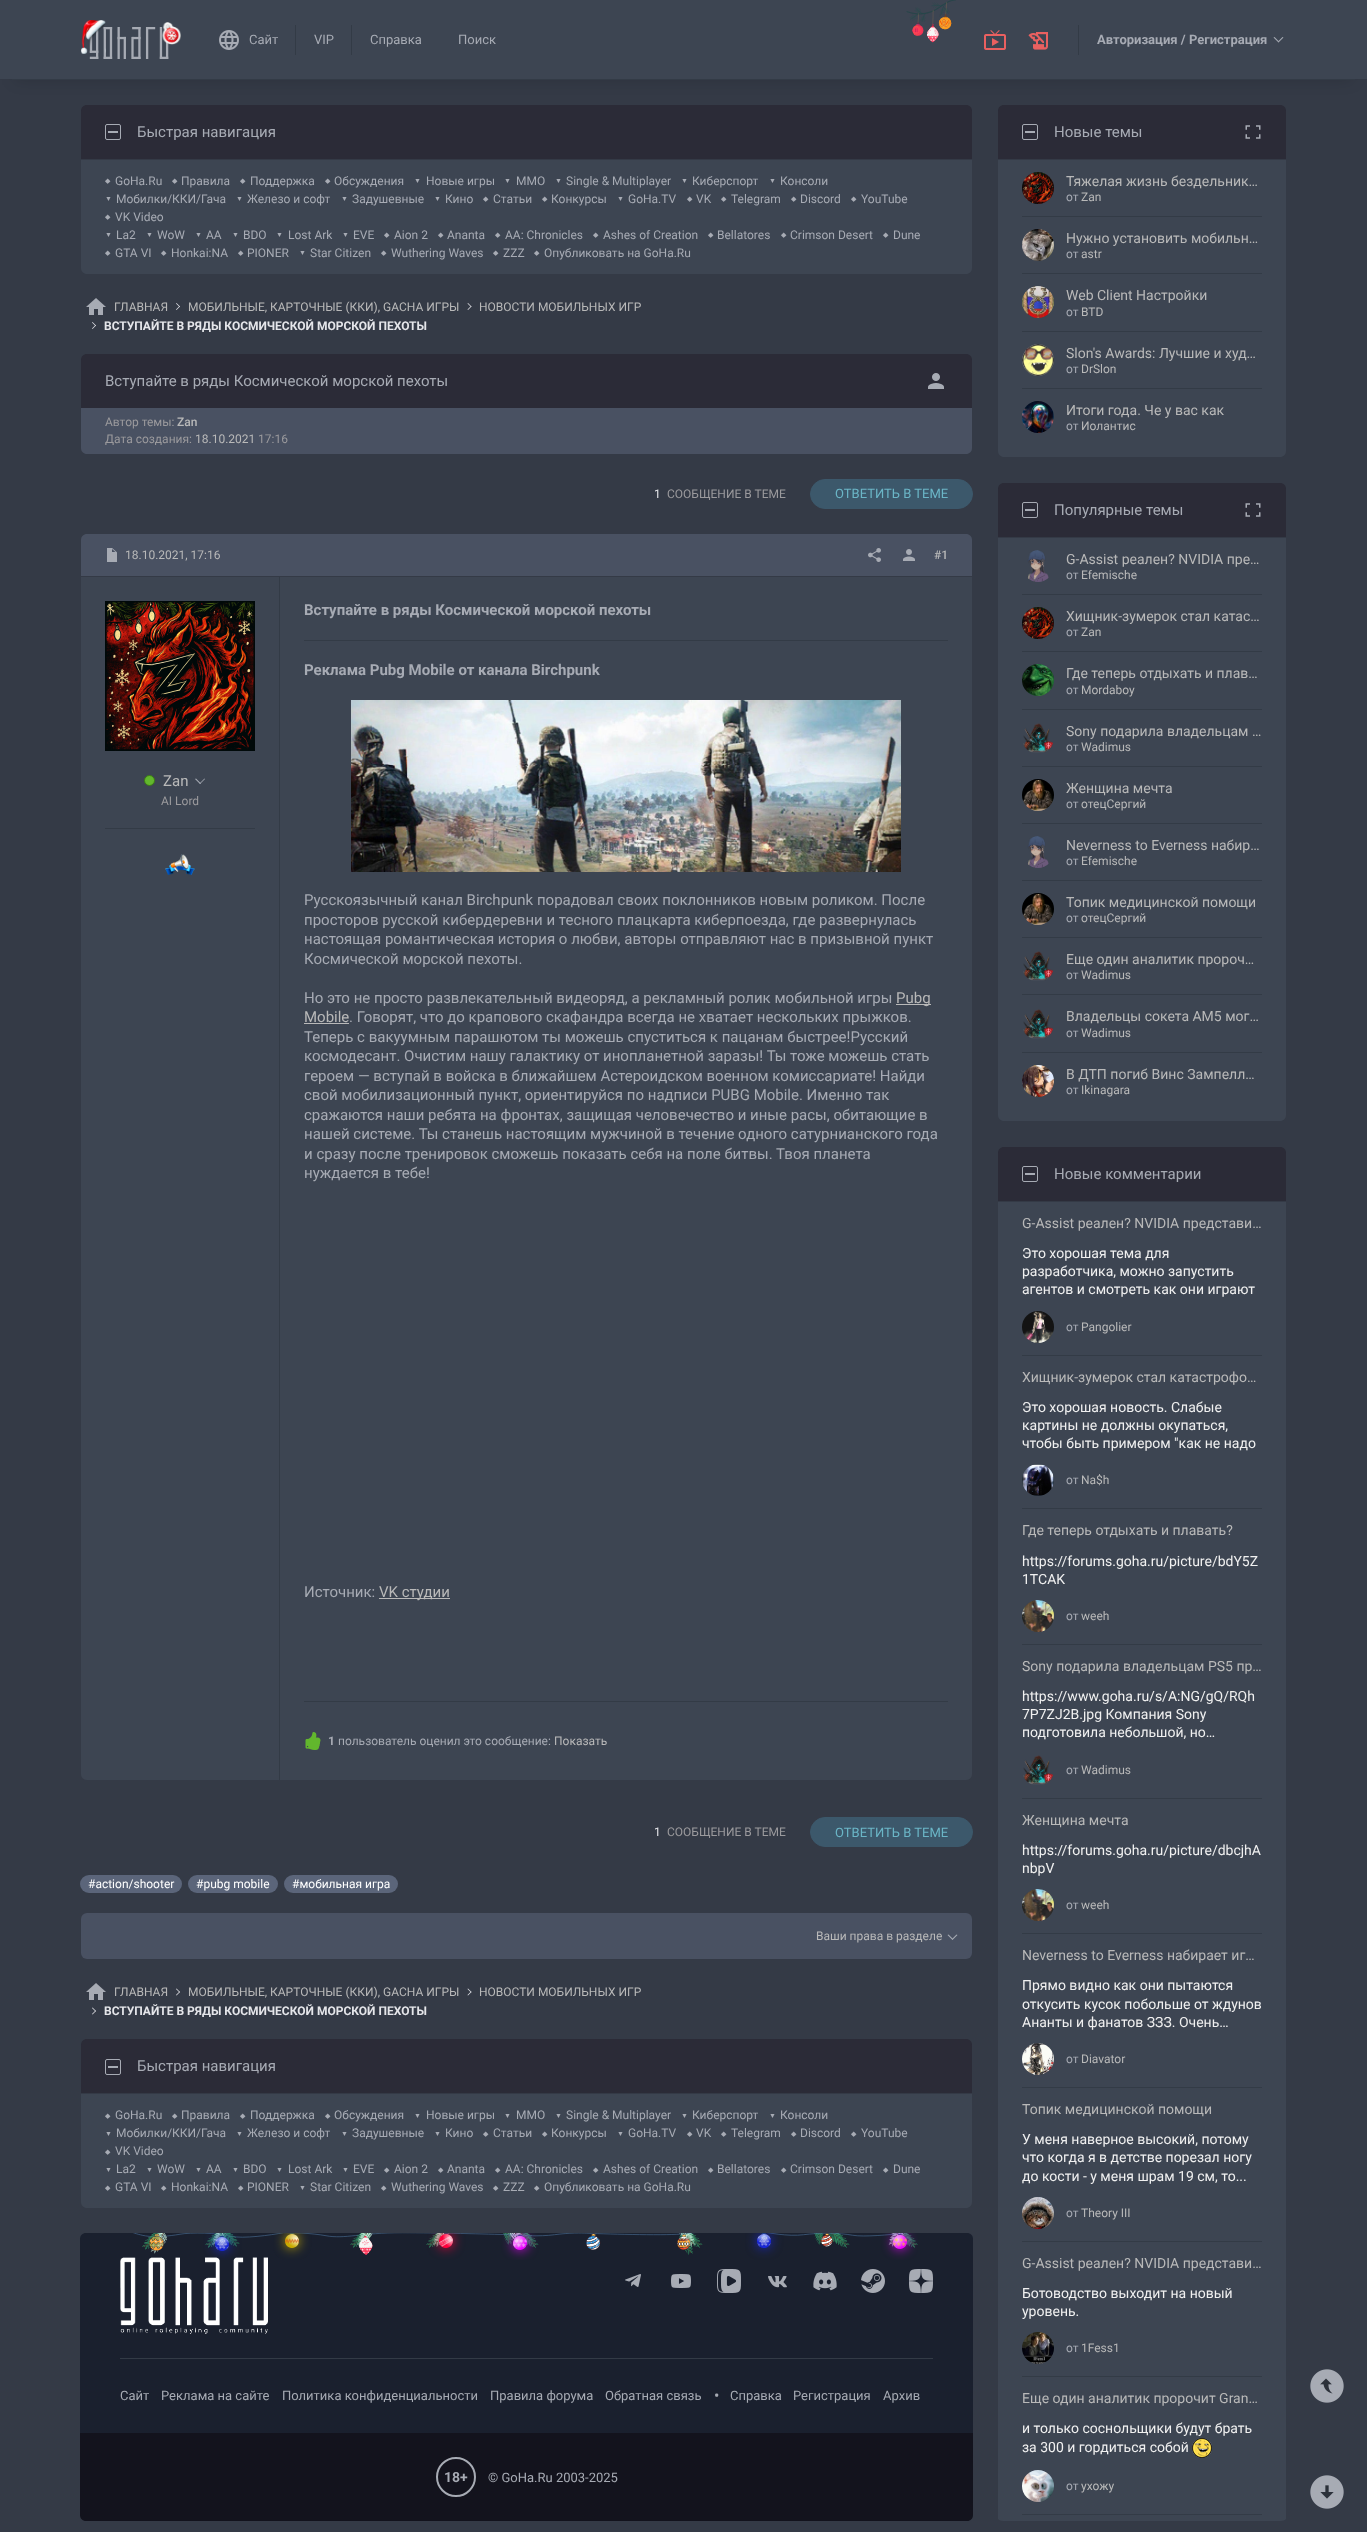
<svg xmlns="http://www.w3.org/2000/svg" xmlns:xlink="http://www.w3.org/1999/xlink" width="1367" height="2532" viewBox="0 0 1367 2532">
<style>
.cls-1{font:13px Roboto;fill:#a7abb4}
.cls-2{font:bold 13px Roboto;fill:#a7abb4}
.cls-3{font:15px Roboto;fill:#a7abb4}
.cls-4{font:7px DejaVu Sans;fill:#a7abb4}
.cls-5{font:12px Roboto;fill:#a7abb4}
.cls-6{font:7px Liberation Sans;fill:#a7abb4}
.cls-7{font:12px Roboto;fill:#b9b9b9}
.cls-8{font:bold 12px Roboto;fill:#e5e6ea}
.cls-9{font:12px Roboto;fill:#9b9a9d}
.cls-10{font:500 12px Roboto;fill:#b9b9b9}
.cls-11{font:12px Roboto;fill:#e5e6ea}
.cls-12{font:13px Roboto;fill:#6bb6c7}
.cls-13{font:15px Roboto;fill:#b9b9b9}
.cls-14{font:bold 15px Roboto;fill:#a7abb4}
.cls-15{font:bold 12px Roboto;fill:#a7abb4}
.cls-16{font:12px Roboto;fill:#ffffff}
.cls-17{font:16px Roboto;fill:#a7abb4}
.cls-18{font:bold 14px Roboto;fill:#a7abb4}
.cls-19{font:14px Roboto;fill:#b9b9b9}
.cls-20{font:14px Roboto;fill:#f0f0f0}
</style>
<rect width="100%" height="100%" fill="#343a46"/>
<rect fill="#000000" fill-opacity="0.15" filter="blur(7.5px)" x="15" y="30" width="1337" height="50"/>
<rect fill="#3d4552" x="0" y="0" width="1367" height="79"/>
<rect fill="#333b46" x="12" y="79" width="1343" height="1"/>
<image xlink:href="image0.png" x="81" y="20" width="100" height="39"/>
<image xlink:href="image1.png" x="219" y="30" width="20" height="20"/>
<rect fill="#333b46" x="295" y="25" width="1" height="30"/>
<rect fill="#333b46" x="351" y="25" width="1" height="30"/>
<image xlink:href="image2.png" x="906" y="0" width="50" height="43"/>
<image xlink:href="image3.png" x="984" y="30" width="22" height="20"/>
<image xlink:href="image4.png" x="1028" y="32" width="20" height="18"/>
<rect fill="#333b46" x="1078" y="25" width="1" height="30"/>
<path fill="#a7abb4" d="M1282.5 37L1283.5 37.5L1278.5 42.5L1278 41.5Z"/>
<path fill="#a7abb4" d="M1274.5 37L1279 41.5L1278.5 42.5L1273.5 37.5Z"/>
<path fill="#2b2b37" d="M87 105H966C969.5 105 972 107.5 972 111V159H81V111C81 107.5 83.5 105 87 105Z"/>
<rect fill="none" stroke="#a7abb4" x="105.5" y="124.5" width="15" height="15" rx="1.5"/>
<rect fill="#a7abb4" x="108" y="131" width="10" height="2"/>
<path fill="#3d4552" d="M81 160H972V268C972 271.5 969.5 274 966 274H87C83.5 274 81 271.5 81 268Z"/>
<image xlink:href="image5.png" x="86" y="298" width="20" height="17"/>
<path fill="#e5e6ea" d="M176.5 303L180 306.5L179.5 307L176 303.5Z"/>
<path fill="#e5e6ea" d="M179.5 306L180 306.5L176.5 310L176 309.5Z"/>
<path fill="#e5e6ea" d="M468 303L471.5 306.5L471 307L467.5 303.5Z"/>
<path fill="#e5e6ea" d="M471 306L471.5 306.5L468 310L467.5 309.5Z"/>
<path fill="#e5e6ea" d="M92.5 322L96 325.5L95.5 326L92 322.5Z"/>
<path fill="#e5e6ea" d="M95.5 325L96 325.5L92.5 329L92 328.5Z"/>
<path fill="#2b2b37" d="M87 354H912V408H81V360C81 356.5 83.5 354 87 354Z"/>
<path fill="#2b2b37" d="M912 354H966C969.5 354 972 356.5 972 360V408H912Z"/>
<image xlink:href="image6.png" x="928" y="373" width="16" height="16"/>
<path fill="#495162" d="M81 408H972V448C972 451.5 969.5 454 966 454H87C83.5 454 81 451.5 81 448Z"/>
<rect fill="#3c586b" stroke="#3c586b" x="810.5" y="479.5" width="162" height="29" rx="14.5"/>
<path fill="#495162" d="M87 534H966C969.5 534 972 536.5 972 540V576H81V540C81 536.5 83.5 534 87 534Z"/>
<image xlink:href="image7.png" x="107" y="548" width="10" height="14"/>
<image xlink:href="image8.png" x="868" y="548" width="13" height="14"/>
<image xlink:href="image9.png" x="903" y="549" width="12" height="12"/>
<path fill="#3d4552" d="M81 577H280V1780H87C83.5 1780 81 1777.5 81 1774Z"/>
<rect fill="#333b46" x="279" y="577" width="1" height="1203"/>
<image xlink:href="image10.png" x="105" y="601" width="150" height="150"/>
<circle fill="#62b72d" stroke="#3c7a15" cx="149.5" cy="780.5" r="5"/>
<path fill="#a7abb4" d="M204.5 778.5L205 779L200 784L199.5 783.5Z"/>
<path fill="#a7abb4" d="M196 778.5L201 783.5L200 784L195 779Z"/>
<rect fill="#333b46" x="105" y="828" width="150" height="1"/>
<image xlink:href="image11.png" x="165" y="854" width="30" height="21"/>
<path fill="#3d4552" d="M280 577H972V1774C972 1777.5 969.5 1780 966 1780H280Z"/>
<rect fill="#333b46" x="304" y="640" width="644" height="1"/>
<image xlink:href="image12.png" x="351" y="700" width="550" height="172"/>
<rect fill="#b9b9b9" x="896" y="1004" width="35" height="1"/>
<rect fill="#b9b9b9" x="304" y="1023" width="45" height="1"/>
<rect fill="#b9b9b9" x="379" y="1598" width="71" height="1"/>
<rect fill="#333b46" x="304" y="1701" width="644" height="1"/>
<image xlink:href="image13.png" x="305" y="1732" width="16" height="18"/>
<rect fill="#3c586b" stroke="#3c586b" x="810.5" y="1817.5" width="162" height="29" rx="14.5"/>
<rect fill="#5b657a" x="80" y="1875" width="102" height="18" rx="9"/>
<rect fill="#5b657a" x="188" y="1875" width="90" height="18" rx="9"/>
<rect fill="#5b657a" x="284" y="1875" width="114" height="18" rx="9"/>
<rect fill="#495162" x="81" y="1913" width="891" height="46" rx="6"/>
<path fill="#a7abb4" d="M956.5 1934.5L957.5 1935L952.5 1940L952 1939Z"/>
<path fill="#a7abb4" d="M948.5 1934.5L953 1939L952.5 1940L947.5 1935Z"/>
<image xlink:href="image5.png" x="86" y="1983" width="20" height="17"/>
<path fill="#e5e6ea" d="M176.5 1988.5L180 1992L179.5 1992.5L176 1989Z"/>
<path fill="#e5e6ea" d="M179.5 1991.5L180 1992L176.5 1995.5L176 1995Z"/>
<path fill="#e5e6ea" d="M468 1988.5L471.5 1992L471 1992.5L467.5 1989Z"/>
<path fill="#e5e6ea" d="M471 1991.5L471.5 1992L468 1995.5L467.5 1995Z"/>
<path fill="#e5e6ea" d="M92.5 2007.5L96 2011L95.5 2011.5L92 2008Z"/>
<path fill="#e5e6ea" d="M95.5 2010.5L96 2011L92.5 2014.5L92 2014Z"/>
<path fill="#2b2b37" d="M87 2039H966C969.5 2039 972 2041.5 972 2045V2093H81V2045C81 2041.5 83.5 2039 87 2039Z"/>
<rect fill="none" stroke="#a7abb4" x="105.5" y="2059.5" width="15" height="15" rx="1.5"/>
<rect fill="#a7abb4" x="108" y="2066" width="10" height="2"/>
<path fill="#3d4552" d="M81 2094H972V2202C972 2205.5 969.5 2208 966 2208H87C83.5 2208 81 2205.5 81 2202Z"/>
<path fill="#1a202e" d="M86 2233H967C970.5 2233 973 2235.5 973 2239V2433H80V2239C80 2235.5 82.5 2233 86 2233Z"/>
<image xlink:href="image14.png" x="133" y="2233" width="785" height="27"/>
<image xlink:href="image15.png" x="120" y="2257" width="148" height="77"/>
<image xlink:href="image16.png" x="625" y="2274" width="16" height="13"/>
<image xlink:href="image17.png" x="671" y="2274" width="20" height="14"/>
<image xlink:href="image18.png" x="717" y="2269" width="24" height="24"/>
<image xlink:href="image19.png" x="768" y="2276" width="19" height="12"/>
<image xlink:href="image20.png" x="813" y="2271" width="24" height="20"/>
<image xlink:href="image21.png" x="861" y="2269" width="24" height="24"/>
<image xlink:href="image22.png" x="909" y="2269" width="24" height="24"/>
<rect fill="#333b46" x="120" y="2358" width="813" height="1"/>
<path fill="#13131d" d="M80 2433H973V2515C973 2518.5 970.5 2521 967 2521H86C82.5 2521 80 2518.5 80 2515Z"/>
<circle fill="none" stroke="#a7abb4" stroke-width="2" cx="456" cy="2477" r="19"/>
<image xlink:href="image23.png" x="1310" y="2369" width="34" height="34"/>
<image xlink:href="image24.png" x="1310" y="2475" width="34" height="34"/>
<path fill="#2b2b37" d="M1004 105H1280C1283.5 105 1286 107.5 1286 111V159H998V111C998 107.5 1000.5 105 1004 105Z"/>
<rect fill="none" stroke="#a7abb4" x="1022.5" y="124.5" width="15" height="15" rx="1.5"/>
<rect fill="#a7abb4" x="1025" y="131" width="10" height="2"/>
<image xlink:href="image25.png" x="1245" y="125" width="16" height="14"/>
<path fill="#3d4552" d="M998 160H1286V451C1286 454.5 1283.5 457 1280 457H1004C1000.5 457 998 454.5 998 451Z"/>
<image xlink:href="image26.png" x="1022" y="172" width="32" height="32"/>
<rect fill="#333b46" x="1022" y="216" width="240" height="1"/>
<image xlink:href="image27.png" x="1022" y="229" width="32" height="32"/>
<rect fill="#333b46" x="1022" y="273" width="240" height="1"/>
<image xlink:href="image28.png" x="1022" y="286" width="32" height="32"/>
<rect fill="#333b46" x="1022" y="331" width="240" height="1"/>
<image xlink:href="image29.png" x="1022" y="344" width="32" height="32"/>
<rect fill="#333b46" x="1022" y="388" width="240" height="1"/>
<image xlink:href="image30.png" x="1022" y="401" width="32" height="32"/>
<path fill="#2b2b37" d="M1004 483H1280C1283.5 483 1286 485.5 1286 489V537H998V489C998 485.5 1000.5 483 1004 483Z"/>
<rect fill="none" stroke="#a7abb4" x="1022.5" y="502.5" width="15" height="15" rx="1.5"/>
<rect fill="#a7abb4" x="1025" y="509" width="10" height="2"/>
<image xlink:href="image25.png" x="1245" y="503" width="16" height="14"/>
<path fill="#3d4552" d="M998 538H1286V1115C1286 1118.5 1283.5 1121 1280 1121H1004C1000.5 1121 998 1118.5 998 1115Z"/>
<image xlink:href="image31.png" x="1027" y="550" width="22" height="32"/>
<rect fill="#333b46" x="1022" y="594" width="240" height="1"/>
<image xlink:href="image26.png" x="1022" y="607" width="32" height="32"/>
<rect fill="#333b46" x="1022" y="651" width="240" height="1"/>
<image xlink:href="image32.png" x="1022" y="664" width="32" height="32"/>
<rect fill="#333b46" x="1022" y="709" width="240" height="1"/>
<image xlink:href="image33.png" x="1023" y="723" width="30" height="30"/>
<rect fill="#333b46" x="1022" y="766" width="240" height="1"/>
<image xlink:href="image34.png" x="1022" y="779" width="32" height="32"/>
<rect fill="#333b46" x="1022" y="823" width="240" height="1"/>
<image xlink:href="image31.png" x="1027" y="836" width="22" height="32"/>
<rect fill="#333b46" x="1022" y="880" width="240" height="1"/>
<image xlink:href="image34.png" x="1022" y="893" width="32" height="32"/>
<rect fill="#333b46" x="1022" y="937" width="240" height="1"/>
<image xlink:href="image33.png" x="1023" y="951" width="30" height="30"/>
<rect fill="#333b46" x="1022" y="994" width="240" height="1"/>
<image xlink:href="image33.png" x="1023" y="1009" width="30" height="30"/>
<rect fill="#333b46" x="1022" y="1052" width="240" height="1"/>
<image xlink:href="image35.png" x="1022" y="1065" width="32" height="32"/>
<path fill="#2b2b37" d="M1004 1147H1280C1283.5 1147 1286 1149.5 1286 1153V1201H998V1153C998 1149.5 1000.5 1147 1004 1147Z"/>
<rect fill="none" stroke="#a7abb4" x="1022.5" y="1166.5" width="15" height="15" rx="1.5"/>
<rect fill="#a7abb4" x="1025" y="1173" width="10" height="2"/>
<path fill="#3d4552" d="M998 1202H1286V2519C1285 2520 1283 2521 1281 2521H1003C1001 2521 999 2520 998 2519Z"/>
<image xlink:href="image36.png" x="1022" y="1311" width="32" height="32"/>
<rect fill="#333b46" x="1022" y="1355" width="240" height="1"/>
<image xlink:href="image37.png" x="1022" y="1464" width="32" height="32"/>
<rect fill="#333b46" x="1022" y="1508" width="240" height="1"/>
<image xlink:href="image38.png" x="1022" y="1600" width="32" height="32"/>
<rect fill="#333b46" x="1022" y="1644" width="240" height="1"/>
<image xlink:href="image33.png" x="1023" y="1755" width="30" height="30"/>
<rect fill="#333b46" x="1022" y="1798" width="240" height="1"/>
<image xlink:href="image38.png" x="1022" y="1889" width="32" height="32"/>
<rect fill="#333b46" x="1022" y="1933" width="240" height="1"/>
<image xlink:href="image39.png" x="1022" y="2043" width="32" height="32"/>
<rect fill="#333b46" x="1022" y="2087" width="240" height="1"/>
<image xlink:href="image40.png" x="1022" y="2197" width="32" height="32"/>
<rect fill="#333b46" x="1022" y="2241" width="240" height="1"/>
<image xlink:href="image41.png" x="1022" y="2332" width="32" height="32"/>
<rect fill="#333b46" x="1022" y="2376" width="240" height="1"/>
<image xlink:href="image42.png" x="1192" y="2438" width="20" height="20"/>
<image xlink:href="image43.png" x="1022" y="2470" width="32" height="32"/>
<rect fill="#333b46" x="1022" y="2514" width="240" height="1"/>
<text class="cls-1" x="249" y="44">Сайт</text>
<text class="cls-1" x="314" y="44">VIP</text>
<text class="cls-1" x="370" y="44">Справка</text>
<text class="cls-1" x="458" y="44">Поиск</text>
<text class="cls-2" x="1097" y="44">Авторизация / Регистрация</text>
<text class="cls-3" x="137" y="137">Быстрая навигация</text>
<text class="cls-4" x="105" y="183">◆</text>
<text class="cls-5" x="115" y="185">GoHa.Ru</text>
<text class="cls-4" x="172" y="183">◆</text>
<text class="cls-5" x="181" y="185">Правила</text>
<text class="cls-4" x="240" y="183">◆</text>
<text class="cls-5" x="250" y="185">Поддержка</text>
<text class="cls-4" x="325" y="183">◆</text>
<text class="cls-5" x="334" y="185">Обсуждения</text>
<text class="cls-6" x="414" y="183">▼</text>
<text class="cls-5" x="426" y="185">Новые игры</text>
<text class="cls-6" x="504" y="183">▼</text>
<text class="cls-5" x="516" y="185">MMO</text>
<text class="cls-6" x="555" y="183">▼</text>
<text class="cls-5" x="566" y="185">Single &amp; Multiplayer</text>
<text class="cls-6" x="681" y="183">▼</text>
<text class="cls-5" x="692" y="185">Киберспорт</text>
<text class="cls-6" x="769" y="183">▼</text>
<text class="cls-5" x="780" y="185">Консоли</text>
<text class="cls-6" x="105" y="201">▼</text>
<text class="cls-5" x="116" y="203">Мобилки/ККИ/Гача</text>
<text class="cls-6" x="236" y="201">▼</text>
<text class="cls-5" x="247" y="203">Железо и софт</text>
<text class="cls-6" x="341" y="201">▼</text>
<text class="cls-5" x="352" y="203">Задушевные</text>
<text class="cls-6" x="434" y="201">▼</text>
<text class="cls-5" x="445" y="203">Кино</text>
<text class="cls-4" x="483" y="201">◆</text>
<text class="cls-5" x="493" y="203">Статьи</text>
<text class="cls-4" x="542" y="201">◆</text>
<text class="cls-5" x="551" y="203">Конкурсы</text>
<text class="cls-6" x="617" y="201">▼</text>
<text class="cls-5" x="628" y="203">GoHa.TV</text>
<text class="cls-4" x="687" y="201">◆</text>
<text class="cls-5" x="696" y="203">VK</text>
<text class="cls-4" x="721" y="201">◆</text>
<text class="cls-5" x="731" y="203">Telegram</text>
<text class="cls-4" x="791" y="201">◆</text>
<text class="cls-5" x="800" y="203">Discord</text>
<text class="cls-4" x="851" y="201">◆</text>
<text class="cls-5" x="861" y="203">YouTube</text>
<text class="cls-4" x="105" y="219">◆</text>
<text class="cls-5" x="115" y="221">VK Video</text>
<text class="cls-6" x="105" y="237">▼</text>
<text class="cls-5" x="116" y="239">La2</text>
<text class="cls-6" x="146" y="237">▼</text>
<text class="cls-5" x="157" y="239">WoW</text>
<text class="cls-6" x="195" y="237">▼</text>
<text class="cls-5" x="206" y="239">AA</text>
<text class="cls-6" x="232" y="237">▼</text>
<text class="cls-5" x="243" y="239">BDO</text>
<text class="cls-6" x="276" y="237">▼</text>
<text class="cls-5" x="288" y="239">Lost Ark</text>
<text class="cls-6" x="342" y="237">▼</text>
<text class="cls-5" x="353" y="239">EVE</text>
<text class="cls-4" x="384" y="237">◆</text>
<text class="cls-5" x="394" y="239">Aion 2</text>
<text class="cls-4" x="438" y="237">◆</text>
<text class="cls-5" x="447" y="239">Ananta</text>
<text class="cls-4" x="495" y="237">◆</text>
<text class="cls-5" x="505" y="239">AA: Chronicles</text>
<text class="cls-4" x="593" y="237">◆</text>
<text class="cls-5" x="603" y="239">Ashes of Creation</text>
<text class="cls-4" x="708" y="237">◆</text>
<text class="cls-5" x="717" y="239">Bellatores</text>
<text class="cls-4" x="781" y="237">◆</text>
<text class="cls-5" x="790" y="239">Crimson Desert</text>
<text class="cls-4" x="883" y="237">◆</text>
<text class="cls-5" x="893" y="239">Dune</text>
<text class="cls-4" x="105" y="255">◆</text>
<text class="cls-5" x="115" y="257">GTA VI</text>
<text class="cls-4" x="161" y="255">◆</text>
<text class="cls-5" x="171" y="257">Honkai:NA</text>
<text class="cls-4" x="238" y="255">◆</text>
<text class="cls-5" x="247" y="257">PIONER</text>
<text class="cls-6" x="299" y="255">▼</text>
<text class="cls-5" x="310" y="257">Star Citizen</text>
<text class="cls-4" x="381" y="255">◆</text>
<text class="cls-5" x="391" y="257">Wuthering Waves</text>
<text class="cls-4" x="493" y="255">◆</text>
<text class="cls-5" x="503" y="257">ZZZ</text>
<text class="cls-4" x="534" y="255">◆</text>
<text class="cls-5" x="544" y="257">Опубликовать на GoHa.Ru</text>
<text class="cls-7" x="114" y="311">ГЛАВНАЯ</text>
<text class="cls-7" x="188" y="311">МОБИЛЬНЫЕ, КАРТОЧНЫЕ (ККИ), GACHA ИГРЫ</text>
<text class="cls-7" x="479" y="311">НОВОСТИ МОБИЛЬНЫХ ИГР</text>
<text class="cls-8" x="104" y="330">ВСТУПАЙТЕ В РЯДЫ КОСМИЧЕСКОЙ МОРСКОЙ ПЕХОТЫ</text>
<text class="cls-3" x="105" y="386">Вступайте в ряды Космической морской пехоты</text>
<text class="cls-9" x="105" y="426">Автор темы:</text>
<text class="cls-10" x="177" y="426">Zan</text>
<text class="cls-9" x="105" y="443">Дата создания:</text>
<text class="cls-7" x="195" y="443">18.10.2021</text>
<text class="cls-9" x="258" y="443">17:16</text>
<text class="cls-11" x="654" y="498">1</text>
<text class="cls-9" x="667" y="498">СООБЩЕНИЕ В ТЕМЕ</text>
<text class="cls-12" x="835" y="498">ОТВЕТИТЬ В ТЕМЕ</text>
<text class="cls-7" x="125" y="559">18.10.2021, 17:16</text>
<text class="cls-10" x="934" y="559">#1</text>
<text class="cls-13" x="163" y="786">Zan</text>
<text class="cls-9" x="161" y="805">AI Lord</text>
<text class="cls-14" x="304" y="615">Вступайте в ряды Космической морской пехоты</text>
<text class="cls-14" x="304" y="675">Реклама Pubg Mobile от канала Birchpunk</text>
<text class="cls-3"><tspan x="304" y="905">Русскоязычный канал Birchpunk порадовал своих поклонников новым роликом. После</tspan><tspan x="304" y="925">просторов русской кибердеревни и тесного плацкарта киберпоезда, где развернулась</tspan><tspan x="304" y="944">настоящая романтическая история о любви, авторы отправляют нас в призывной пункт</tspan><tspan x="304" y="964">Космической морской пехоты.</tspan></text>
<text class="cls-3" x="304" y="1003">Но это не просто развлекательный видеоряд, а рекламный ролик мобильной игры</text>
<text class="cls-13" x="896" y="1003">Pubg</text>
<text class="cls-13" x="304" y="1022">Mobile</text>
<text class="cls-3" x="349" y="1022">. Говорят, что до крапового скафандра всегда не хватает нескольких прыжков.</text>
<text class="cls-3"><tspan x="304" y="1042">Теперь с вакуумным парашютом ты можешь спуститься к пацанам быстрее!Русский</tspan><tspan x="304" y="1061">космодесант. Очистим нашу галактику от инопланетной заразы! Ты тоже можешь стать</tspan><tspan x="304" y="1081">героем — вступай в войска в ближайшем Астероидском военном комиссариате! Найди</tspan><tspan x="304" y="1100">свой мобилизационный пункт, ориентируйся по надписи PUBG Mobile. Именно так</tspan><tspan x="304" y="1120">сражаются наши ребята на фронтах, защищая человечество и иные расы, обитающие в</tspan><tspan x="304" y="1139">нашей системе. Ты станешь настоящим мужчиной в течение одного сатурнианского года</tspan><tspan x="304" y="1159">и сразу после тренировок сможешь показать себя на поле битвы. Твоя планета</tspan><tspan x="304" y="1178">нуждается в тебе!</tspan></text>
<text class="cls-3" x="304" y="1597">Источник:</text>
<text class="cls-13" x="379" y="1597">VK студии</text>
<text class="cls-15" x="328" y="1745">1</text>
<text class="cls-5" x="338" y="1745">пользователь оценил это сообщение:</text>
<text class="cls-7" x="554" y="1745">Показать</text>
<text class="cls-11" x="654" y="1836">1</text>
<text class="cls-9" x="667" y="1836">СООБЩЕНИЕ В ТЕМЕ</text>
<text class="cls-12" x="835" y="1837">ОТВЕТИТЬ В ТЕМЕ</text>
<text class="cls-16" x="88" y="1888">#action/shooter</text>
<text class="cls-16" x="196" y="1888">#pubg mobile</text>
<text class="cls-16" x="292" y="1888">#мобильная игра</text>
<text class="cls-7" x="816" y="1940">Ваши права в разделе</text>
<text class="cls-7" x="114" y="1996">ГЛАВНАЯ</text>
<text class="cls-7" x="188" y="1996">МОБИЛЬНЫЕ, КАРТОЧНЫЕ (ККИ), GACHA ИГРЫ</text>
<text class="cls-7" x="479" y="1996">НОВОСТИ МОБИЛЬНЫХ ИГР</text>
<text class="cls-8" x="104" y="2015">ВСТУПАЙТЕ В РЯДЫ КОСМИЧЕСКОЙ МОРСКОЙ ПЕХОТЫ</text>
<text class="cls-3" x="137" y="2071">Быстрая навигация</text>
<text class="cls-4" x="105" y="2118">◆</text>
<text class="cls-5" x="115" y="2119">GoHa.Ru</text>
<text class="cls-4" x="172" y="2118">◆</text>
<text class="cls-5" x="181" y="2119">Правила</text>
<text class="cls-4" x="240" y="2118">◆</text>
<text class="cls-5" x="250" y="2119">Поддержка</text>
<text class="cls-4" x="325" y="2118">◆</text>
<text class="cls-5" x="334" y="2119">Обсуждения</text>
<text class="cls-6" x="414" y="2118">▼</text>
<text class="cls-5" x="426" y="2119">Новые игры</text>
<text class="cls-6" x="504" y="2118">▼</text>
<text class="cls-5" x="516" y="2119">MMO</text>
<text class="cls-6" x="555" y="2118">▼</text>
<text class="cls-5" x="566" y="2119">Single &amp; Multiplayer</text>
<text class="cls-6" x="681" y="2118">▼</text>
<text class="cls-5" x="692" y="2119">Киберспорт</text>
<text class="cls-6" x="769" y="2118">▼</text>
<text class="cls-5" x="780" y="2119">Консоли</text>
<text class="cls-6" x="105" y="2136">▼</text>
<text class="cls-5" x="116" y="2137">Мобилки/ККИ/Гача</text>
<text class="cls-6" x="236" y="2136">▼</text>
<text class="cls-5" x="247" y="2137">Железо и софт</text>
<text class="cls-6" x="341" y="2136">▼</text>
<text class="cls-5" x="352" y="2137">Задушевные</text>
<text class="cls-6" x="434" y="2136">▼</text>
<text class="cls-5" x="445" y="2137">Кино</text>
<text class="cls-4" x="483" y="2136">◆</text>
<text class="cls-5" x="493" y="2137">Статьи</text>
<text class="cls-4" x="542" y="2136">◆</text>
<text class="cls-5" x="551" y="2137">Конкурсы</text>
<text class="cls-6" x="617" y="2136">▼</text>
<text class="cls-5" x="628" y="2137">GoHa.TV</text>
<text class="cls-4" x="687" y="2136">◆</text>
<text class="cls-5" x="696" y="2137">VK</text>
<text class="cls-4" x="721" y="2136">◆</text>
<text class="cls-5" x="731" y="2137">Telegram</text>
<text class="cls-4" x="791" y="2136">◆</text>
<text class="cls-5" x="800" y="2137">Discord</text>
<text class="cls-4" x="851" y="2136">◆</text>
<text class="cls-5" x="861" y="2137">YouTube</text>
<text class="cls-4" x="105" y="2154">◆</text>
<text class="cls-5" x="115" y="2155">VK Video</text>
<text class="cls-6" x="105" y="2172">▼</text>
<text class="cls-5" x="116" y="2173">La2</text>
<text class="cls-6" x="146" y="2172">▼</text>
<text class="cls-5" x="157" y="2173">WoW</text>
<text class="cls-6" x="195" y="2172">▼</text>
<text class="cls-5" x="206" y="2173">AA</text>
<text class="cls-6" x="232" y="2172">▼</text>
<text class="cls-5" x="243" y="2173">BDO</text>
<text class="cls-6" x="276" y="2172">▼</text>
<text class="cls-5" x="288" y="2173">Lost Ark</text>
<text class="cls-6" x="342" y="2172">▼</text>
<text class="cls-5" x="353" y="2173">EVE</text>
<text class="cls-4" x="384" y="2172">◆</text>
<text class="cls-5" x="394" y="2173">Aion 2</text>
<text class="cls-4" x="438" y="2172">◆</text>
<text class="cls-5" x="447" y="2173">Ananta</text>
<text class="cls-4" x="495" y="2172">◆</text>
<text class="cls-5" x="505" y="2173">AA: Chronicles</text>
<text class="cls-4" x="593" y="2172">◆</text>
<text class="cls-5" x="603" y="2173">Ashes of Creation</text>
<text class="cls-4" x="708" y="2172">◆</text>
<text class="cls-5" x="717" y="2173">Bellatores</text>
<text class="cls-4" x="781" y="2172">◆</text>
<text class="cls-5" x="790" y="2173">Crimson Desert</text>
<text class="cls-4" x="883" y="2172">◆</text>
<text class="cls-5" x="893" y="2173">Dune</text>
<text class="cls-4" x="105" y="2190">◆</text>
<text class="cls-5" x="115" y="2191">GTA VI</text>
<text class="cls-4" x="161" y="2190">◆</text>
<text class="cls-5" x="171" y="2191">Honkai:NA</text>
<text class="cls-4" x="238" y="2190">◆</text>
<text class="cls-5" x="247" y="2191">PIONER</text>
<text class="cls-6" x="299" y="2190">▼</text>
<text class="cls-5" x="310" y="2191">Star Citizen</text>
<text class="cls-4" x="381" y="2190">◆</text>
<text class="cls-5" x="391" y="2191">Wuthering Waves</text>
<text class="cls-4" x="493" y="2190">◆</text>
<text class="cls-5" x="503" y="2191">ZZZ</text>
<text class="cls-4" x="534" y="2190">◆</text>
<text class="cls-5" x="544" y="2191">Опубликовать на GoHa.Ru</text>
<text class="cls-1" x="120" y="2400">Сайт</text>
<text class="cls-1" x="161" y="2400">Реклама на сайте</text>
<text class="cls-1" x="282" y="2400">Политика конфиденциальности</text>
<text class="cls-1" x="490" y="2400">Правила форума</text>
<text class="cls-1" x="605" y="2400">Обратная связь</text>
<text class="cls-17" x="714" y="2401">•</text>
<text class="cls-1" x="730" y="2400">Справка</text>
<text class="cls-1" x="793" y="2400">Регистрация</text>
<text class="cls-1" x="883" y="2400">Архив</text>
<text class="cls-18" x="444" y="2482">18+</text>
<text class="cls-1" x="488" y="2482">© GoHa.Ru 2003-2025</text>
<text class="cls-3" x="1054" y="137">Новые темы</text>
<text class="cls-19" x="1066" y="186">Тяжелая жизнь бездельник…</text>
<text class="cls-5" x="1066" y="201">от</text>
<text class="cls-7" x="1081" y="201">Zan</text>
<text class="cls-19" x="1066" y="243">Нужно установить мобильн…</text>
<text class="cls-5" x="1066" y="258">от</text>
<text class="cls-7" x="1081" y="258">astr</text>
<text class="cls-19" x="1066" y="300">Web Client Настройки</text>
<text class="cls-5" x="1066" y="316">от</text>
<text class="cls-7" x="1081" y="316">BTD</text>
<text class="cls-19" x="1066" y="358">Slon's Awards: Лучшие и худ…</text>
<text class="cls-5" x="1066" y="373">от</text>
<text class="cls-7" x="1081" y="373">DrSlon</text>
<text class="cls-19" x="1066" y="415">Итоги года. Че у вас как</text>
<text class="cls-5" x="1066" y="430">от</text>
<text class="cls-7" x="1081" y="430">Иолантис</text>
<text class="cls-3" x="1054" y="515">Популярные темы</text>
<text class="cls-19" x="1066" y="564">G-Assist реален? NVIDIA пре…</text>
<text class="cls-5" x="1066" y="579">от</text>
<text class="cls-7" x="1081" y="579">Efemische</text>
<text class="cls-19" x="1066" y="621">Хищник-зумерок стал катас…</text>
<text class="cls-5" x="1066" y="636">от</text>
<text class="cls-7" x="1081" y="636">Zan</text>
<text class="cls-19" x="1066" y="678">Где теперь отдыхать и плав…</text>
<text class="cls-5" x="1066" y="694">от</text>
<text class="cls-7" x="1081" y="694">Mordaboy</text>
<text class="cls-19" x="1066" y="736">Sony подарила владельцам …</text>
<text class="cls-5" x="1066" y="751">от</text>
<text class="cls-7" x="1081" y="751">Wadimus</text>
<text class="cls-19" x="1066" y="793">Женщина мечта</text>
<text class="cls-5" x="1066" y="808">от</text>
<text class="cls-7" x="1081" y="808">отецСергий</text>
<text class="cls-19" x="1066" y="850">Neverness to Everness набир…</text>
<text class="cls-5" x="1066" y="865">от</text>
<text class="cls-7" x="1081" y="865">Efemische</text>
<text class="cls-19" x="1066" y="907">Топик медицинской помощи</text>
<text class="cls-5" x="1066" y="922">от</text>
<text class="cls-7" x="1081" y="922">отецСергий</text>
<text class="cls-19" x="1066" y="964">Еще один аналитик пророч…</text>
<text class="cls-5" x="1066" y="979">от</text>
<text class="cls-7" x="1081" y="979">Wadimus</text>
<text class="cls-19" x="1066" y="1021">Владельцы сокета AM5 мог…</text>
<text class="cls-5" x="1066" y="1037">от</text>
<text class="cls-7" x="1081" y="1037">Wadimus</text>
<text class="cls-19" x="1066" y="1079">В ДТП погиб Винc Зампелл…</text>
<text class="cls-5" x="1066" y="1094">от</text>
<text class="cls-7" x="1081" y="1094">Ikinagara</text>
<text class="cls-3" x="1054" y="1179">Новые комментарии</text>
<text class="cls-19" x="1022" y="1228">G-Assist реален? NVIDIA представи…</text>
<text class="cls-20"><tspan x="1022" y="1258">Это хорошая тема для</tspan><tspan x="1022" y="1276">разработчика, можно запустить</tspan><tspan x="1022" y="1294">агентов и смотреть как они играют</tspan></text>
<text class="cls-5" x="1066" y="1331">от</text>
<text class="cls-7" x="1081" y="1331">Pangolier</text>
<text class="cls-19" x="1022" y="1382">Хищник-зумерок стал катастрофо…</text>
<text class="cls-20"><tspan x="1022" y="1412">Это хорошая новость. Слабые</tspan><tspan x="1022" y="1430">картины не должны окупаться,</tspan><tspan x="1022" y="1448">чтобы быть примером "как не надо</tspan></text>
<text class="cls-5" x="1066" y="1484">от</text>
<text class="cls-7" x="1081" y="1484">Na$h</text>
<text class="cls-19" x="1022" y="1535">Где теперь отдыхать и плавать?</text>
<text class="cls-20"><tspan x="1022" y="1566">https://forums.goha.ru/picture/bdY5Z</tspan><tspan x="1022" y="1584">1TCAK</tspan></text>
<text class="cls-5" x="1066" y="1620">от</text>
<text class="cls-7" x="1081" y="1620">weeh</text>
<text class="cls-19" x="1022" y="1671">Sony подарила владельцам PS5 пр…</text>
<text class="cls-20"><tspan x="1022" y="1701">https://www.goha.ru/s/A:NG/gQ/RQh</tspan><tspan x="1022" y="1719">7P7ZJ2B.jpg Компания Sony</tspan><tspan x="1022" y="1737">подготовила небольшой, но…</tspan></text>
<text class="cls-5" x="1066" y="1774">от</text>
<text class="cls-7" x="1081" y="1774">Wadimus</text>
<text class="cls-19" x="1022" y="1825">Женщина мечта</text>
<text class="cls-20"><tspan x="1022" y="1855">https://forums.goha.ru/picture/dbcjhA</tspan><tspan x="1022" y="1873">nbpV</tspan></text>
<text class="cls-5" x="1066" y="1909">от</text>
<text class="cls-7" x="1081" y="1909">weeh</text>
<text class="cls-19" x="1022" y="1960">Neverness to Everness набирает иг…</text>
<text class="cls-20"><tspan x="1022" y="1990">Прямо видно как они пытаются</tspan><tspan x="1022" y="2009">откусить кусок побольше от ждунов</tspan><tspan x="1022" y="2027">Ананты и фанатов ЗЗЗ. Очень…</tspan></text>
<text class="cls-5" x="1066" y="2063">от</text>
<text class="cls-7" x="1081" y="2063">Diavator</text>
<text class="cls-19" x="1022" y="2114">Топик медицинской помощи</text>
<text class="cls-20"><tspan x="1022" y="2144">У меня наверное высокий, потому</tspan><tspan x="1022" y="2162">что когда я в детстве порезал ногу</tspan><tspan x="1022" y="2181">до кости - у меня шрам 19 см, то...</tspan></text>
<text class="cls-5" x="1066" y="2217">от</text>
<text class="cls-7" x="1081" y="2217">Theory III</text>
<text class="cls-19" x="1022" y="2268">G-Assist реален? NVIDIA представи…</text>
<text class="cls-20"><tspan x="1022" y="2298">Ботоводство выходит на новый</tspan><tspan x="1022" y="2316">уровень.</tspan></text>
<text class="cls-5" x="1066" y="2352">от</text>
<text class="cls-7" x="1081" y="2352">1Fess1</text>
<text class="cls-19" x="1022" y="2403">Еще один аналитик пророчит Gran…</text>
<text class="cls-20"><tspan x="1022" y="2433">и только соснольщики будут брать</tspan><tspan x="1022" y="2452">за 300 и гордиться собой</tspan></text>
<text class="cls-5" x="1066" y="2490">от</text>
<text class="cls-7" x="1081" y="2490">ухожу</text>
</svg>
